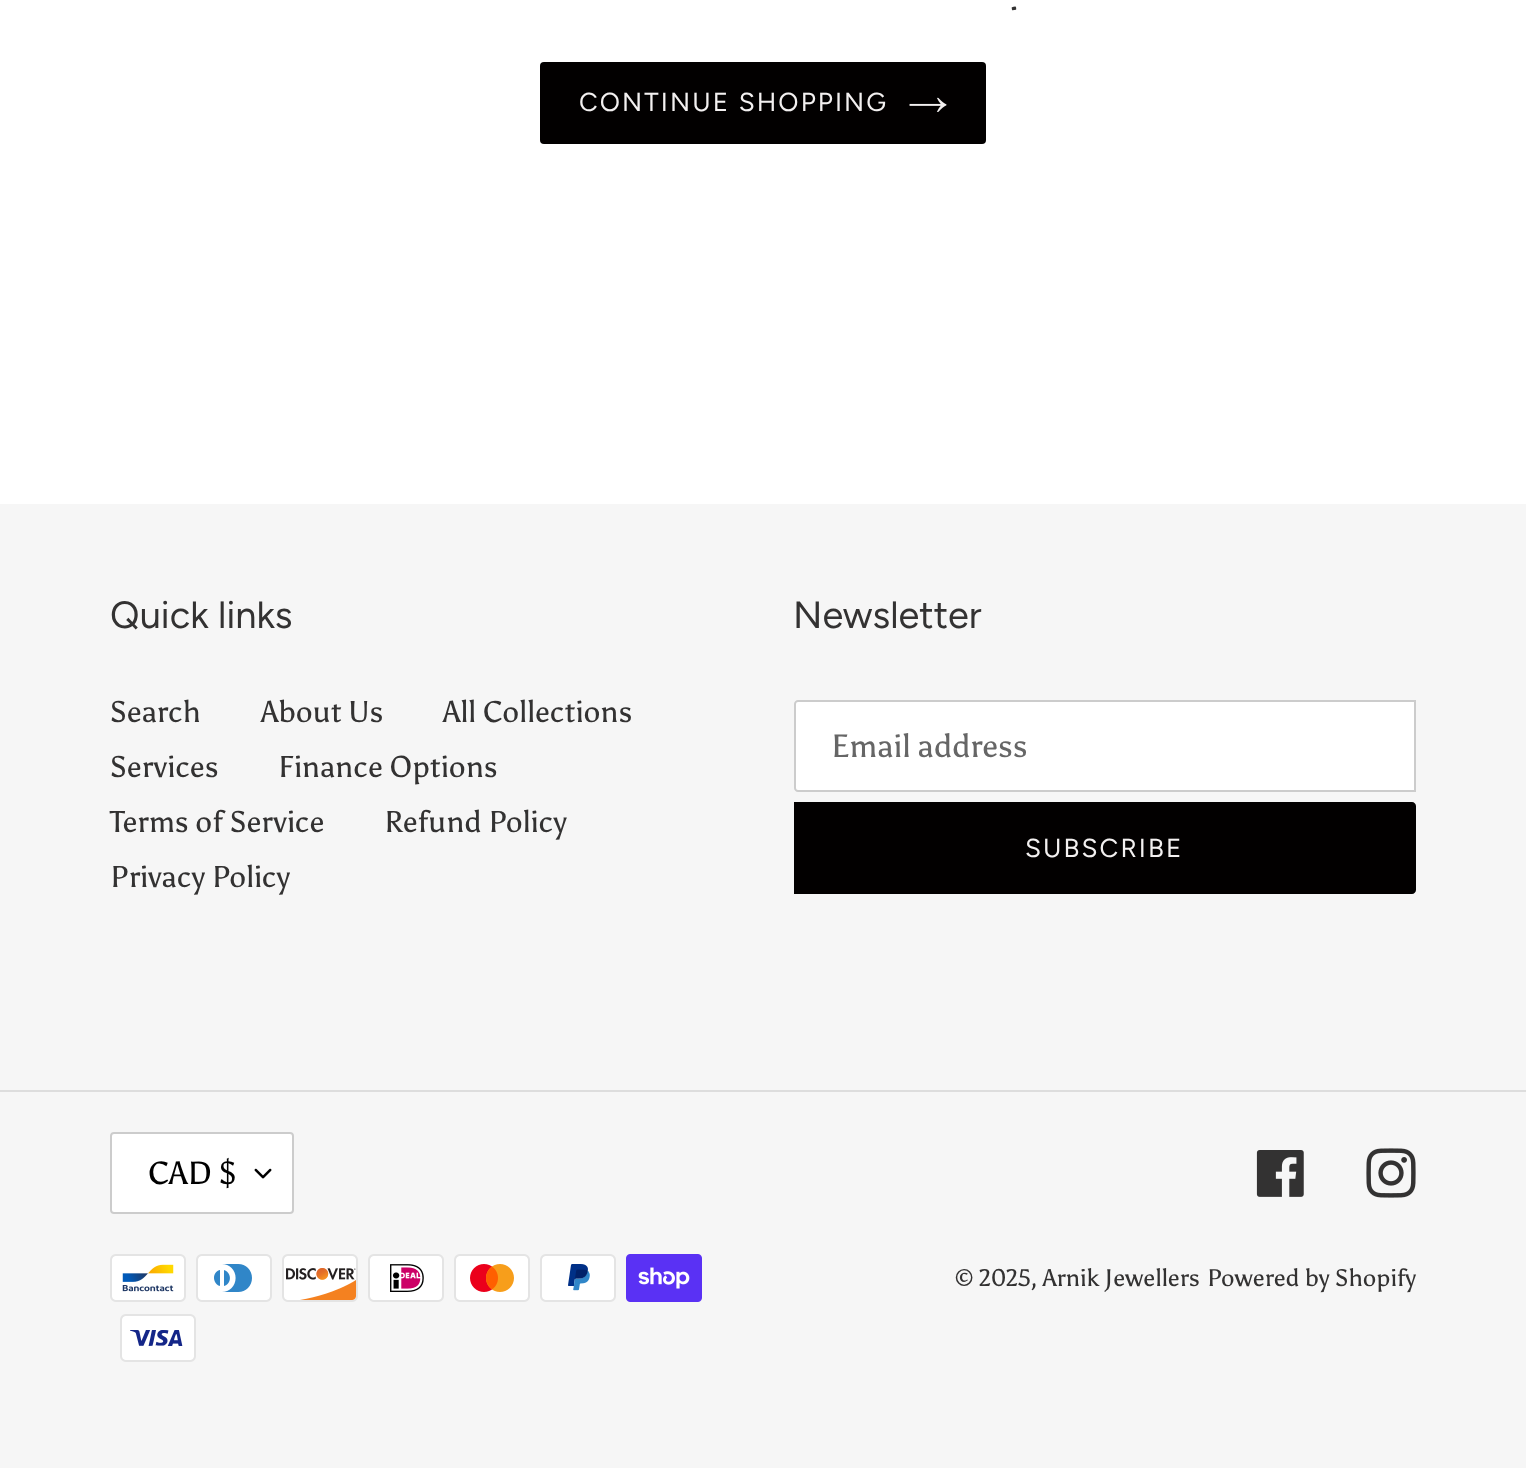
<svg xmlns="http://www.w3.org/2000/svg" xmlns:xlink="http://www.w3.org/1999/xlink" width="1526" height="1468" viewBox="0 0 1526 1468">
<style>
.cls-1{font:30px Asul;fill:#333232}
.cls-2{font:26px Figtree;letter-spacing:2.1px;fill:#f3f0f0}
.cls-3{font:38px Figtree;fill:#333232}
.cls-4{font:32px Asul;fill:#666666}
.cls-5{font:32px Asul;fill:#000000}
.cls-6{font:24px Asul;fill:#333232}
</style>
<rect width="100%" height="100%" fill="#ffffff"/>
<rect fill="#020000" x="540" y="62" width="446" height="82" rx="4"/>
<image xlink:href="image0.png" x="909" y="97" width="38" height="15"/>
<rect fill="#f6f6f6" x="0" y="504" width="1526" height="964"/>
<path fill="#ffffff" stroke="#cccccc" stroke-width="2" d="M798 701H1415V791H798C796.5 791 795 789.5 795 788V704C795 702.5 796.5 701 798 701Z"/>
<path fill="#020000" d="M794 802H1412C1414 802 1416 804 1416 806V890C1416 892 1414 894 1412 894H794Z"/>
<rect fill="#dddddd" x="0" y="1090" width="1526" height="2"/>
<rect fill="#ffffff" x="110" y="1132" width="184" height="82" rx="4"/>
<image xlink:href="image1.png" x="254" y="1168" width="18" height="11"/>
<rect fill="none" stroke="#cccccc" stroke-width="2" x="111" y="1133" width="182" height="80" rx="3"/>
<image xlink:href="image2.png" x="1256" y="1150" width="48" height="47"/>
<image xlink:href="image3.png" x="1366" y="1148" width="50" height="50"/>
<image xlink:href="image4.png" x="110" y="1254" width="76" height="48"/>
<image xlink:href="image5.png" x="196" y="1254" width="76" height="48"/>
<image xlink:href="image6.png" x="282" y="1254" width="76" height="48"/>
<image xlink:href="image7.png" x="368" y="1254" width="76" height="48"/>
<image xlink:href="image8.png" x="454" y="1254" width="76" height="48"/>
<image xlink:href="image9.png" x="540" y="1254" width="76" height="48"/>
<image xlink:href="image10.png" x="626" y="1254" width="76" height="48"/>
<image xlink:href="image11.png" x="120" y="1314" width="76" height="48"/>
<text class="cls-1" x="1009" y="10">.</text>
<text class="cls-2" x="579" y="111">CONTINUE SHOPPING</text>
<text class="cls-3" x="110" y="628">Quick links</text>
<text class="cls-1" x="110" y="722">Search</text>
<text class="cls-1" x="261" y="722">About Us</text>
<text class="cls-1" x="443" y="722">All Collections</text>
<text class="cls-1" x="110" y="777">Services</text>
<text class="cls-1" x="278" y="777">Finance Options</text>
<text class="cls-1" x="110" y="832">Terms of Service</text>
<text class="cls-1" x="384" y="832">Refund Policy</text>
<text class="cls-1" x="110" y="887">Privacy Policy</text>
<text class="cls-3" x="793" y="628">Newsletter</text>
<text class="cls-4" x="831" y="757">Email address</text>
<text class="cls-2" x="1025" y="857">SUBSCRIBE</text>
<text class="cls-5" x="148" y="1184">CAD $</text>
<text class="cls-6" x="955" y="1286">© 2025, Arnik Jewellers</text>
<text class="cls-6" x="1207" y="1286">Powered by Shopify</text>
</svg>
